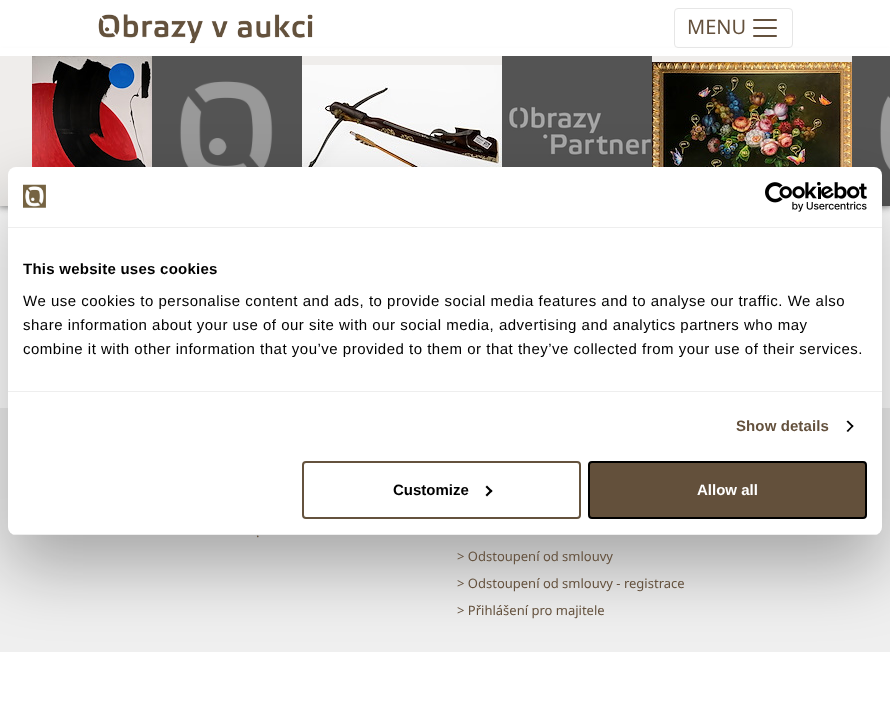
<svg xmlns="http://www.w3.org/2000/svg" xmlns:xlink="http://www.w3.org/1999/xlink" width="890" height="701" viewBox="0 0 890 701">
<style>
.cls-1{font:20px Noto Sans;fill:#64513d}
.cls-2{font:bold 15px Liberation Sans;letter-spacing:0.25px;fill:#000000}
.cls-3{font:15px Liberation Sans;letter-spacing:0.5px;fill:#000000}
.cls-4{font:bold 15px Liberation Sans;letter-spacing:0.1px;fill:#64513d}
.cls-5{font:bold 15px Liberation Sans;fill:#000000}
.cls-6{font:bold 15px Liberation Sans;fill:#ffffff}
.cls-7{font:13px Noto Sans;fill:#64513d}
</style>
<defs>
<clipPath id="clip1"><rect x="8" y="167" width="874" height="368" rx="8"/></clipPath>
</defs>
<rect width="100%" height="100%" fill="#ffffff"/>
<rect fill="#808080" filter="blur(3.5px)" x="-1" y="55" width="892" height="152"/>
<rect fill="#ffffff" x="0" y="48" width="890" height="8"/>
<image xlink:href="image0.png" x="98" y="14" width="215" height="30"/>
<rect fill="none" stroke="#e6e6e6" x="674.5" y="8.5" width="118" height="39" rx="3.5"/>
<image xlink:href="image1.png" x="753" y="19" width="24" height="18"/>
<rect fill="#efedeb" x="0" y="56" width="852" height="150"/>
<image xlink:href="image2.png" x="32" y="56" width="120" height="111"/>
<image xlink:href="image3.png" x="152" y="56" width="150" height="111"/>
<image xlink:href="image4.png" x="302" y="65" width="200" height="102"/>
<image xlink:href="image5.png" x="502" y="56" width="150" height="111"/>
<image xlink:href="image6.png" x="652" y="62" width="200" height="105"/>
<image xlink:href="image7.png" x="852" y="56" width="38" height="150"/>
<rect fill="#efefef" x="0" y="408" width="890" height="244"/>
<rect fill="#000000" fill-opacity="0.3" filter="blur(34px)" x="8" y="199" width="874" height="368" rx="8"/>
<rect fill="#ffffff" x="8" y="167" width="874" height="368" rx="8"/>
<rect fill="#eeeeee" x="8" y="227" width="874" height="1"/>
<image xlink:href="image8.png" x="23" y="184" width="23" height="24"/>
<image xlink:href="image9.png" x="765" y="182" width="102" height="30"/>
<rect fill="#eeeeee" x="8" y="391" width="874" height="1"/>
<path fill="#000000" d="M848 420.5L853.5 426L852.5 427.5L846.5 421.5Z"/>
<path fill="#000000" d="M852.5 425L853.5 426L848 432L846.5 431Z"/>
<g clip-path="url(#clip1)">
<rect fill="#eeeeee" x="8" y="534" width="874" height="1"/>
</g>
<rect fill="none" stroke="#64523d" stroke-width="2" x="303" y="462" width="277" height="56" rx="3"/>
<path fill="#000000" d="M487 485.5L492.5 491L491 492.5L485.5 487Z"/>
<path fill="#000000" d="M491 489.5L492.5 491L487 496.5L485.5 495Z"/>
<rect fill="#63503b" stroke="#000000" stroke-width="2" x="589" y="462" width="277" height="56" rx="3"/>
<text class="cls-1" x="687" y="34">MENU</text>
<text class="cls-2" x="23" y="274">This website uses cookies</text>
<text class="cls-3"><tspan x="23" y="306">We use cookies to personalise content and ads, to provide social media features and to analyse our traffic. We also</tspan><tspan x="23" y="330">share information about your use of our site with our social media, advertising and analytics partners who may</tspan><tspan x="23" y="354">combine it with other information that you’ve provided to them or that they’ve collected from your use of their services.</tspan></text>
<text class="cls-4" x="736" y="431">Show details</text>
<text class="cls-5" x="393" y="495">Customize</text>
<text class="cls-6" x="697" y="495">Allow all</text>
<text class="cls-7" x="256" y="537">.</text>
<text class="cls-7" x="457" y="561">&gt; Odstoupení od smlouvy</text>
<text class="cls-7" x="457" y="588">&gt; Odstoupení od smlouvy - registrace</text>
<text class="cls-7" x="457" y="615">&gt; Přihlášení pro majitele</text>
</svg>
